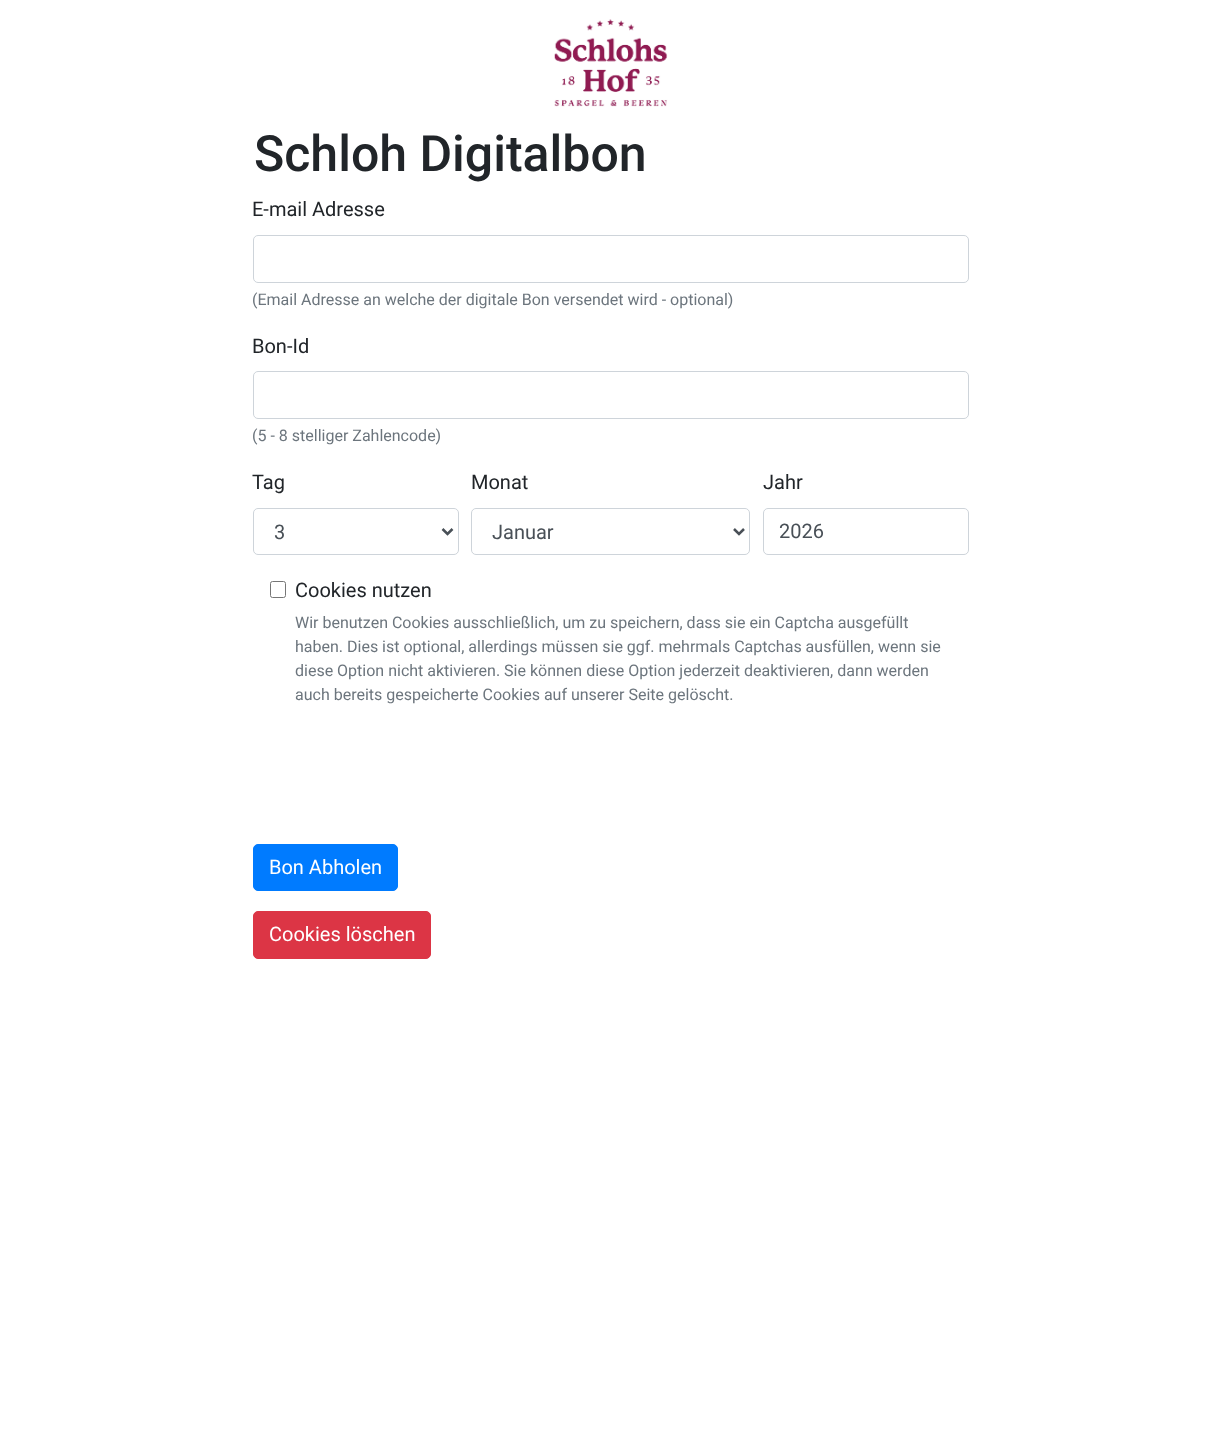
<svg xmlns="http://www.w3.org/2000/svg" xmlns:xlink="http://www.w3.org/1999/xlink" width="1221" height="1452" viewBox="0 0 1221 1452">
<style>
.cls-1{font:500 50px Roboto;fill:#212529}
.cls-2{font:20px Roboto;fill:#212529}
.cls-3{font:16px Roboto;fill:#6c757d}
.cls-4{font:20px Roboto;fill:#495057}
.cls-5{font:20px Roboto;fill:#ffffff}
</style>
<rect width="100%" height="100%" fill="#ffffff"/>
<image xlink:href="image0.png" x="554" y="19" width="114" height="88"/>
<rect fill="none" stroke="#ced4da" x="253.5" y="235.5" width="715" height="47" rx="4.5"/>
<rect fill="none" stroke="#ced4da" x="253.5" y="371.5" width="715" height="47" rx="4.5"/>
<rect fill="none" stroke="#ced4da" x="253.5" y="508.5" width="205" height="46" rx="4.5"/>
<path fill="none" stroke="#495057" stroke-width="2.5" d="M442.5 529L447.5 534L452.5 529"/>
<rect fill="none" stroke="#ced4da" x="471.5" y="508.5" width="278" height="46" rx="4.5"/>
<path fill="none" stroke="#495057" stroke-width="2.5" d="M734 529L739 534L744 529"/>
<rect fill="none" stroke="#ced4da" x="763.5" y="508.5" width="205" height="46" rx="4.5"/>
<rect fill="none" stroke="#767676" x="270.5" y="581.5" width="15" height="16" rx="2"/>
<rect fill="#007bff" stroke="#007bff" x="253.5" y="844.5" width="144" height="46" rx="4.5"/>
<rect fill="#dc3545" stroke="#dc3545" x="253.5" y="911.5" width="177" height="47" rx="4.5"/>
<text class="cls-1" x="254" y="171">Schloh Digitalbon</text>
<text class="cls-2" x="252" y="216">E-mail Adresse</text>
<text class="cls-3" x="252" y="305">(Email Adresse an welche der digitale Bon versendet wird - optional)</text>
<text class="cls-2" x="252" y="353">Bon-Id</text>
<text class="cls-3" x="252" y="441">(5 - 8 stelliger Zahlencode)</text>
<text class="cls-2" x="252" y="489">Tag</text>
<text class="cls-4" x="274" y="539">3</text>
<text class="cls-2" x="471" y="489">Monat</text>
<text class="cls-4" x="492" y="539">Januar</text>
<text class="cls-2" x="763" y="489">Jahr</text>
<text class="cls-4" x="779" y="538">2026</text>
<text class="cls-2" x="295" y="597">Cookies nutzen</text>
<text class="cls-3"><tspan x="295" y="628">Wir benutzen Cookies ausschließlich, um zu speichern, dass sie ein Captcha ausgefüllt</tspan><tspan x="295" y="652">haben. Dies ist optional, allerdings müssen sie ggf. mehrmals Captchas ausfüllen, wenn sie</tspan><tspan x="295" y="676">diese Option nicht aktivieren. Sie können diese Option jederzeit deaktivieren, dann werden</tspan><tspan x="295" y="700">auch bereits gespeicherte Cookies auf unserer Seite gelöscht.</tspan></text>
<text class="cls-5" x="269" y="874">Bon Abholen</text>
<text class="cls-5" x="269" y="941">Cookies löschen</text>
</svg>
